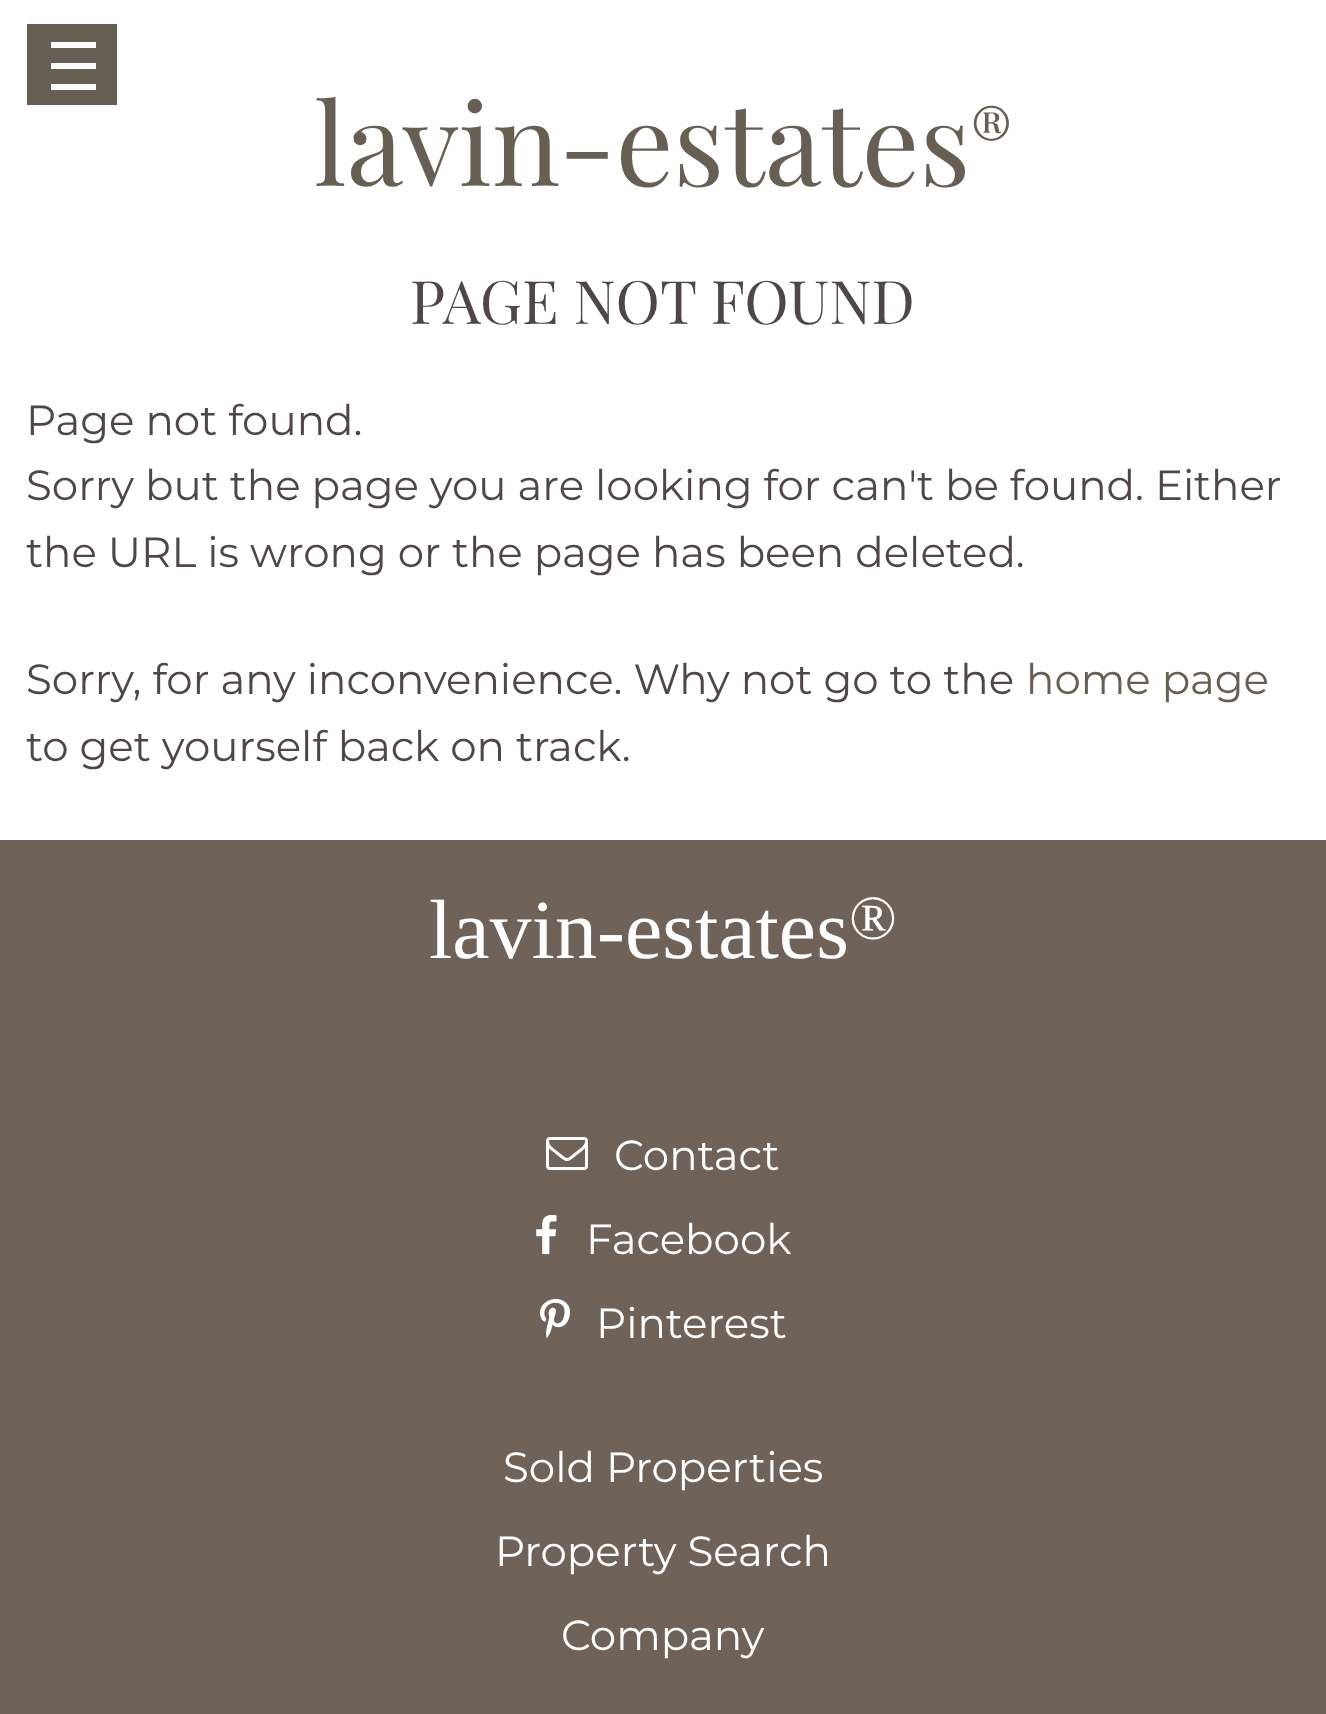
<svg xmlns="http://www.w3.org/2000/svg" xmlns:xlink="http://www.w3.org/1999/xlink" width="1326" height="1714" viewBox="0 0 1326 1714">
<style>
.cls-1{font:114px Playfair Display;fill:#675f54}
.cls-2{font:63px Playfair Display;fill:#675f54}
.cls-3{font:60px Playfair Display;fill:#4f4747}
.cls-4{font:100 42px Montserrat;fill:#4f4747}
.cls-5{font:100 42px Montserrat;fill:#675f54}
.cls-6{font:84px Liberation Serif;fill:#ffffff}
.cls-7{font:63px Liberation Serif;fill:#ffffff}
.cls-8{font:100 42px Montserrat;fill:#ffffff}
</style>
<rect width="100%" height="100%" fill="#ffffff"/>
<rect fill="#675f54" x="27" y="24" width="90" height="81"/>
<rect fill="#ffffff" x="51" y="63" width="45" height="6"/>
<rect fill="#ffffff" x="51" y="42" width="45" height="6"/>
<rect fill="#ffffff" x="51" y="84" width="45" height="6"/>
<rect fill="#6e6259" x="0" y="840" width="1326" height="874"/>
<image xlink:href="image0.png" x="546" y="1137" width="42" height="33"/>
<image xlink:href="image1.png" x="536" y="1215" width="21" height="39"/>
<image xlink:href="image2.png" x="540" y="1299" width="30" height="39"/>
<text class="cls-1" x="314" y="186">lavin-estates</text>
<text class="cls-2" x="970" y="155">®</text>
<text class="cls-3" x="410" y="324">PAGE NOT FOUND</text>
<text class="cls-4"><tspan x="26" y="435">Page not found.</tspan><tspan x="26" y="500">Sorry but the page you are looking for can't be found. Either</tspan><tspan x="26" y="567">the URL is wrong or the page has been deleted.</tspan></text>
<text class="cls-4" x="26" y="694">Sorry, for any inconvenience. Why not go to the</text>
<text class="cls-5" x="1026" y="694">home page</text>
<text class="cls-4" x="26" y="761">to get yourself back on track.</text>
<text class="cls-6" x="429" y="958">lavin-estates</text>
<text class="cls-7" x="849" y="939">®</text>
<text class="cls-8" x="614" y="1170">Contact</text>
<text class="cls-8" x="586" y="1254">Facebook</text>
<text class="cls-8" x="596" y="1338">Pinterest</text>
<text class="cls-8" x="503" y="1482">Sold Properties</text>
<text class="cls-8" x="495" y="1566">Property Search</text>
<text class="cls-8" x="561" y="1650">Company</text>
</svg>
